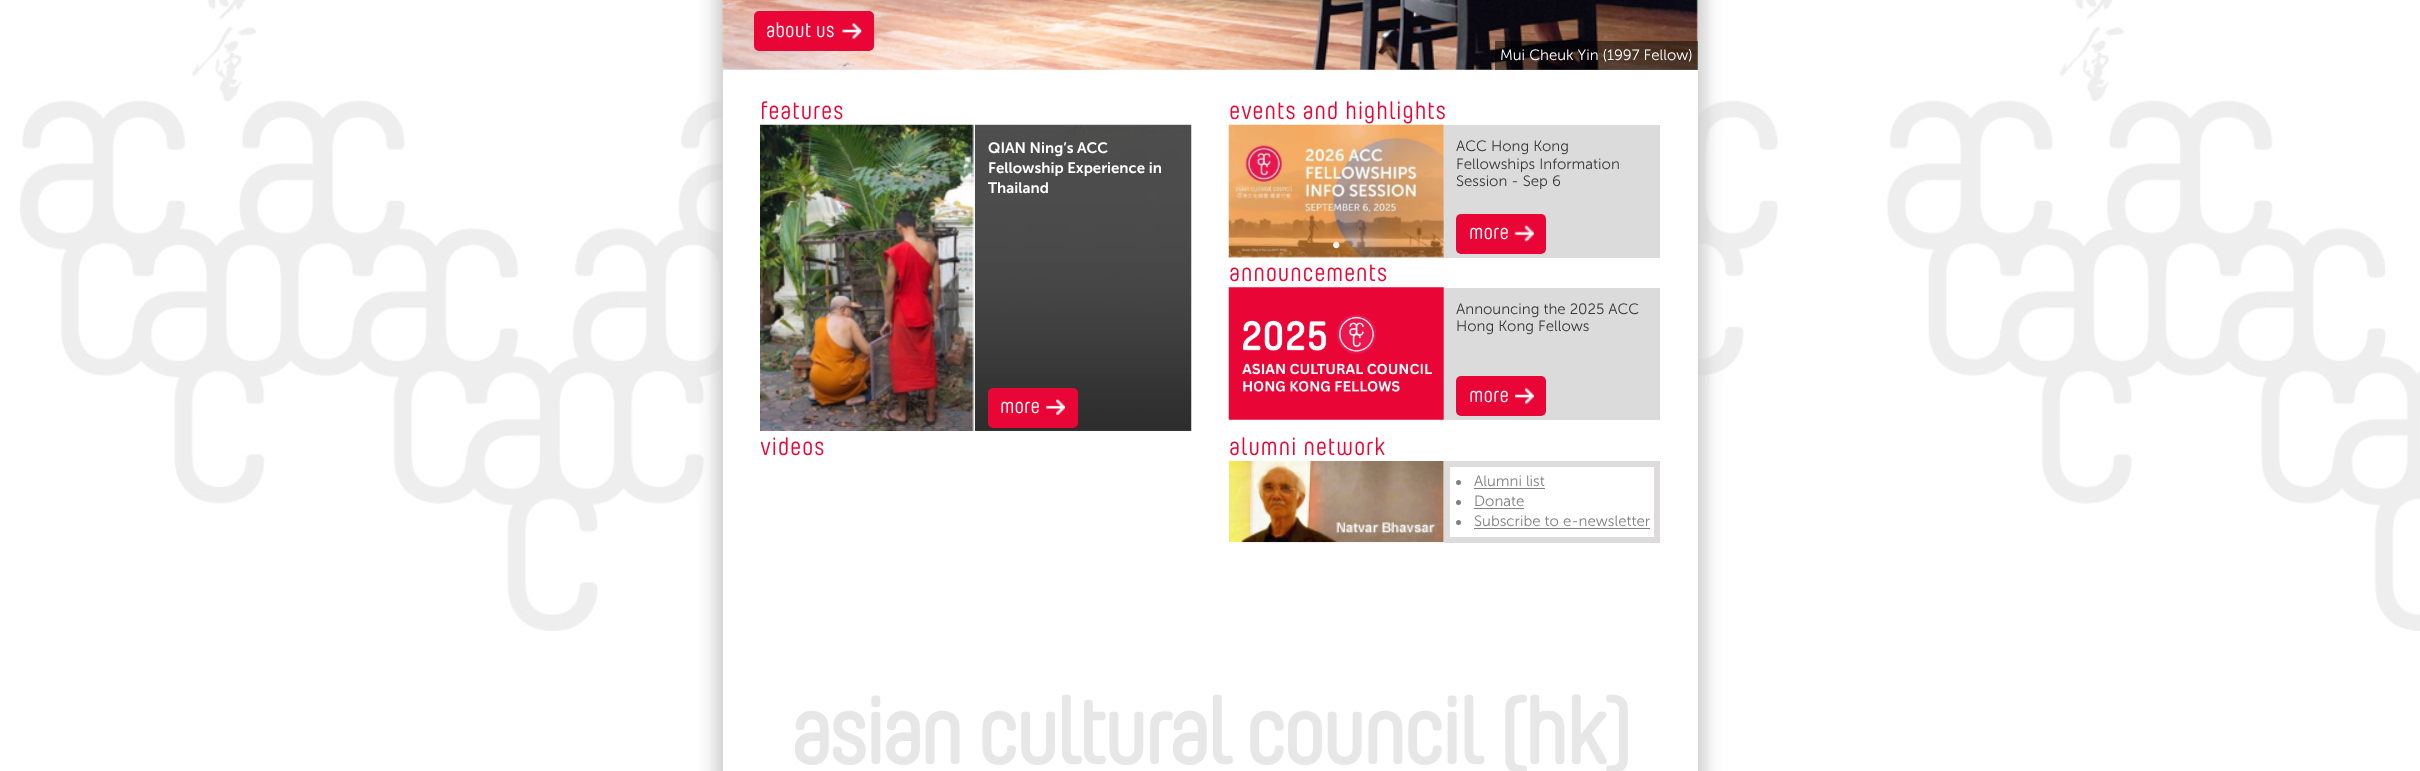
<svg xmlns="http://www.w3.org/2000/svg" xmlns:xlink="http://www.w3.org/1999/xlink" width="2420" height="771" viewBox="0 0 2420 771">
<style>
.cls-1{font:21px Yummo;fill:#ffffff}
.cls-2{font:300 15px Museo Sans;fill:#ffffff}
.cls-3{font:25px Yummo;letter-spacing:0.6px;fill:#e90636}
.cls-4{font:600 15px Museo Sans;fill:#ffffff}
.cls-5{font:300 15px Museo Sans;fill:#393939}
.cls-6{font:300 15px Museo Sans;fill:#808080}
.cls-7{font:bold 93.75px Yummo;letter-spacing:-3.75px;fill:#e7e7e7}
</style>
<rect width="100%" height="100%" fill="#ffffff"/>
<image xlink:href="image0.png" x="20" y="0" width="2400" height="631"/>
<rect fill="#cccccc" filter="blur(9.5px)" x="729" y="-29" width="975" height="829"/>
<rect fill="#cccccc" filter="blur(9.5px)" x="716" y="-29" width="975" height="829"/>
<rect fill="#ffffff" x="723" y="0" width="975" height="771"/>
<image xlink:href="image1.png" x="722" y="0" width="976" height="70"/>
<rect fill="#e90636" x="754" y="11" width="120" height="40" rx="5"/>
<image xlink:href="image2.png" x="842" y="23" width="20" height="16"/>
<rect fill="#000000" fill-opacity="0.5" x="1495" y="41" width="203" height="29"/>
<image xlink:href="image3.png" x="760" y="124" width="215" height="307"/>
<image xlink:href="image4.png" x="975" y="124" width="217" height="307"/>
<rect fill="#e90636" x="988" y="388" width="90" height="40" rx="5"/>
<image xlink:href="image5.png" x="1046" y="399" width="19" height="16"/>
<image xlink:href="image6.png" x="1228" y="124" width="216" height="134"/>
<rect fill="#dcdbdb" x="1444" y="125" width="216" height="133"/>
<rect fill="#e90636" x="1456" y="214" width="90" height="40" rx="5"/>
<image xlink:href="image7.png" x="1514" y="225" width="20" height="17"/>
<image xlink:href="image8.png" x="1333" y="241" width="7" height="8"/>
<image xlink:href="image9.png" x="1228" y="287" width="216" height="133"/>
<rect fill="#dcdbdb" x="1444" y="288" width="216" height="132"/>
<rect fill="#e90636" x="1456" y="376" width="90" height="40" rx="5"/>
<image xlink:href="image10.png" x="1515" y="388" width="19" height="16"/>
<image xlink:href="image11.png" x="1228" y="461" width="216" height="82"/>
<image xlink:href="image12.png" x="1229" y="461" width="214" height="81"/>
<rect fill="none" stroke="#dddbdc" stroke-width="6" x="1447" y="464" width="210" height="76"/>
<circle fill="#808080" cx="1458.5" cy="482.5" r="2.5"/>
<rect fill="#808080" x="1474" y="488" width="71" height="1"/>
<circle fill="#808080" cx="1458.5" cy="502.5" r="2.5"/>
<rect fill="#808080" x="1474" y="508" width="50" height="1"/>
<circle fill="#808080" cx="1458.5" cy="522.5" r="2.5"/>
<rect fill="#808080" x="1474" y="528" width="176" height="1"/>
<text class="cls-1" x="766" y="37">about us</text>
<text class="cls-2" x="1500" y="60">Mui Cheuk Yin (1997 Fellow)</text>
<text class="cls-3" x="760" y="119">features</text>
<text class="cls-4"><tspan x="988" y="153">QIAN Ning’s ACC</tspan><tspan x="988" y="173">Fellowship Experience in</tspan><tspan x="988" y="193">Thailand</tspan></text>
<text class="cls-1" x="1000" y="413">more</text>
<text class="cls-3" x="1229" y="119">events and highlights</text>
<text class="cls-5"><tspan x="1456" y="151">ACC Hong Kong</tspan><tspan x="1456" y="169">Fellowships Information</tspan><tspan x="1456" y="186">Session - Sep 6</tspan></text>
<text class="cls-1" x="1469" y="239">more</text>
<text class="cls-3" x="1229" y="281">announcements</text>
<text class="cls-5"><tspan x="1456" y="314">Announcing the 2025 ACC</tspan><tspan x="1456" y="331">Hong Kong Fellows</tspan></text>
<text class="cls-1" x="1469" y="402">more</text>
<text class="cls-3" x="760" y="455">videos</text>
<text class="cls-3" x="1229" y="455">alumni network</text>
<text class="cls-6"><tspan x="1474" y="486">Alumni list</tspan><tspan x="1474" y="506">Donate</tspan><tspan x="1474" y="526">Subscribe to e-newsletter</tspan></text>
<text class="cls-7" x="790" y="764">asian cultural council (hk)</text>
</svg>
